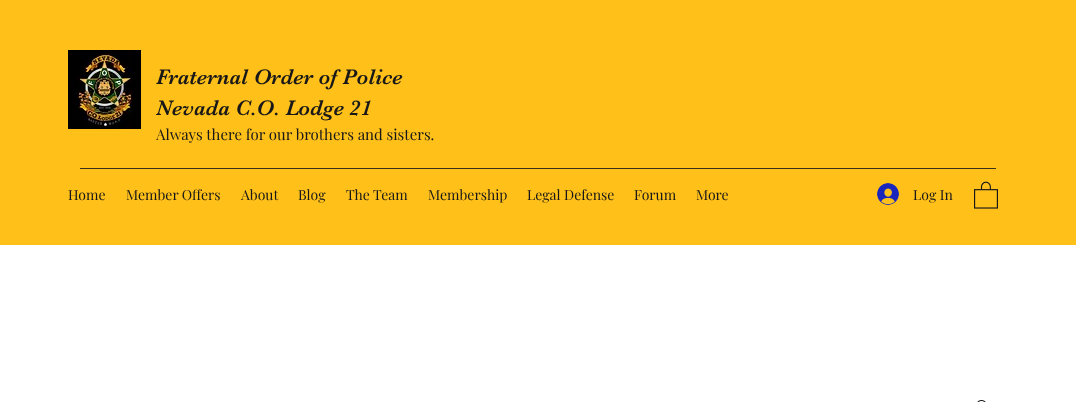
<svg xmlns="http://www.w3.org/2000/svg" xmlns:xlink="http://www.w3.org/1999/xlink" width="1076" height="402" viewBox="0 0 1076 402">
<style>
.cls-1{font:22px 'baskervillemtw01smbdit';fill:#181818}
.cls-2{font:15px Playfair Display;fill:#181818}
.cls-3{font:14px Playfair Display;fill:#181818}
</style>
<rect width="100%" height="100%" fill="#ffffff"/>
<rect fill="#ffc01a" x="0" y="0" width="1076" height="245"/>
<image xlink:href="image0.png" x="68" y="50" width="73" height="79"/>
<rect fill="#3b3118" x="80" y="168" width="916" height="1"/>
<image xlink:href="image1.png" x="877" y="183" width="22" height="22"/>
<image xlink:href="image2.png" x="974" y="181" width="24" height="28"/>
<image xlink:href="image3.png" x="977" y="400" width="9" height="2"/>
<text class="cls-1"><tspan x="156" y="84">Fraternal Order of Police</tspan><tspan x="156" y="115">Nevada C.O. Lodge 21</tspan></text>
<text class="cls-2" x="156" y="140">Always there for our brothers and sisters.</text>
<text class="cls-3" x="68" y="200">Home</text>
<text class="cls-3" x="126" y="200">Member Offers</text>
<text class="cls-3" x="241" y="200">About</text>
<text class="cls-3" x="298" y="200">Blog</text>
<text class="cls-3" x="346" y="200">The Team</text>
<text class="cls-3" x="428" y="200">Membership</text>
<text class="cls-3" x="527" y="200">Legal Defense</text>
<text class="cls-3" x="634" y="200">Forum</text>
<text class="cls-3" x="696" y="200">More</text>
<text class="cls-3" x="913" y="200">Log In</text>
</svg>
